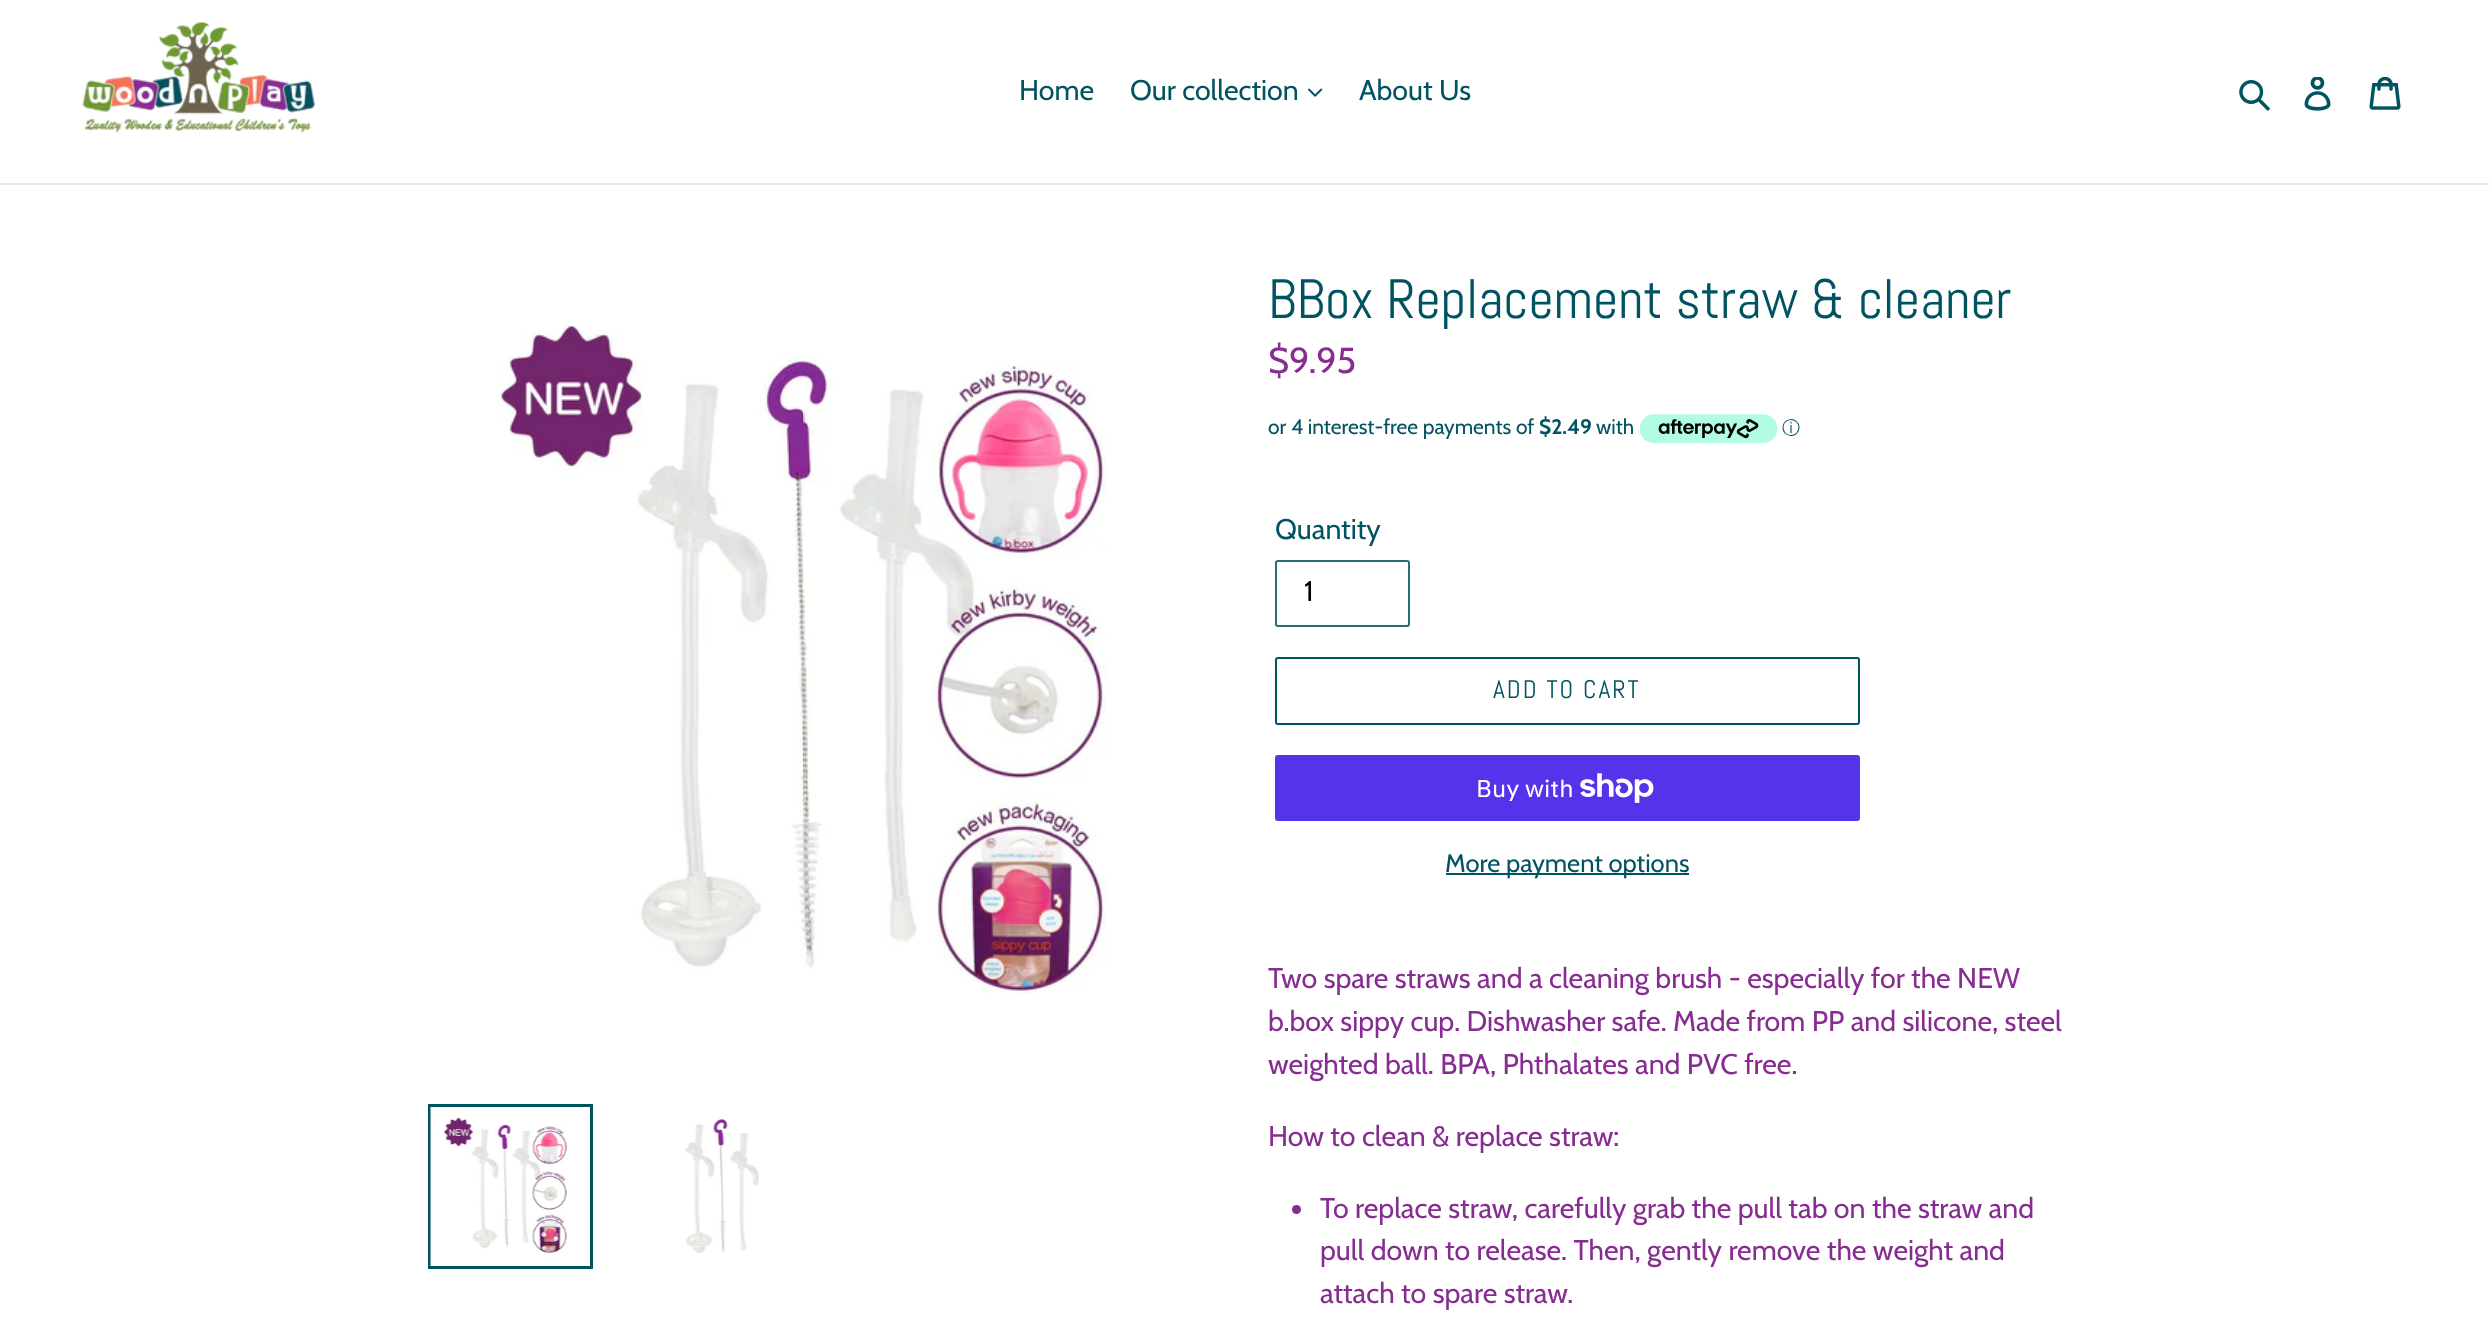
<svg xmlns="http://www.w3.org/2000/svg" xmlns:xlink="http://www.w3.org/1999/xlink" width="2489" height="1331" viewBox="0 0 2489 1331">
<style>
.cls-1{font:28.5px Cabin;fill:#005361}
.cls-2{font:55.5px Abel;fill:#005361}
.cls-3{font:36px Cabin;fill:#872d91}
.cls-4{font:21px Cabin;fill:#005361}
.cls-5{font:bold 21px Cabin;fill:#005361}
.cls-6{font:500 18px WenQuanYi Zen Hei;fill:#005361}
.cls-7{font:28.5px Cabin;fill:#000000}
.cls-8{font:25.5px Abel;letter-spacing:2px;fill:#005361}
.cls-9{font:24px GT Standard;fill:#ffffff}
.cls-10{font:25.5px Cabin;fill:#005361}
.cls-11{font:28.5px Cabin;fill:#872d91}
</style>
<rect width="100%" height="100%" fill="#ffffff"/>
<rect fill="#e8e9eb" x="0" y="183" width="2489" height="2"/>
<image xlink:href="image0.png" x="82" y="22" width="233" height="111"/>
<image xlink:href="image1.png" x="1308" y="88" width="15" height="9"/>
<image xlink:href="image2.png" x="2239" y="80" width="31" height="31"/>
<image xlink:href="image3.png" x="2304" y="77" width="27" height="34"/>
<image xlink:href="image4.png" x="2369" y="77" width="32" height="33"/>
<image xlink:href="image5.png" x="497" y="320" width="610" height="674"/>
<rect fill="none" stroke="#005361" stroke-width="3" x="429.5" y="1105.5" width="162" height="162"/>
<image xlink:href="image6.png" x="430" y="1107" width="139" height="159"/>
<image xlink:href="image7.png" x="685" y="1119" width="75" height="134"/>
<image xlink:href="image8.png" x="1640" y="414" width="138" height="29"/>
<rect fill="none" stroke="#266d79" stroke-width="2" x="1276" y="561" width="133" height="65" rx="2"/>
<rect fill="none" stroke="#005361" stroke-width="2" x="1276" y="658" width="583" height="66" rx="2"/>
<rect fill="#5433eb" x="1275" y="755" width="585" height="66" rx="3"/>
<image xlink:href="image9.png" x="1580" y="773" width="74" height="30"/>
<rect fill="#005361" x="1446" y="873" width="243" height="2"/>
<circle fill="#872d91" cx="1296.5" cy="1209.5" r="4.5"/>
<text class="cls-1" x="1019" y="100">Home</text>
<text class="cls-1" x="1130" y="100">Our collection</text>
<text class="cls-1" x="1359" y="100">About Us</text>
<text class="cls-2" x="1268" y="318">BBox Replacement straw &amp; cleaner</text>
<text class="cls-3" x="1268" y="373">$9.95</text>
<text class="cls-4" x="1268" y="434">or 4 interest-free payments of</text>
<text class="cls-5" x="1539" y="434">$2.49</text>
<text class="cls-4" x="1596" y="434">with</text>
<text class="cls-6" x="1782" y="434">ⓘ</text>
<text class="cls-1" x="1275" y="539">Quantity</text>
<text class="cls-7" x="1304" y="601">1</text>
<text class="cls-8" x="1493" y="698">ADD TO CART</text>
<text class="cls-9" x="1476" y="797">Buy with</text>
<text class="cls-10" x="1445" y="872">More payment options</text>
<text class="cls-11"><tspan x="1268" y="988">Two spare straws and a cleaning brush - especially for the NEW</tspan><tspan x="1268" y="1031">b.box sippy cup. Dishwasher safe. Made from PP and silicone, steel</tspan><tspan x="1268" y="1074">weighted ball. BPA, Phthalates and PVC free.</tspan></text>
<text class="cls-11" x="1268" y="1146">How to clean &amp; replace straw:</text>
<text class="cls-11"><tspan x="1320" y="1218">To replace straw, carefully grab the pull tab on the straw and</tspan><tspan x="1320" y="1260">pull down to release. Then, gently remove the weight and</tspan><tspan x="1320" y="1303">attach to spare straw.</tspan></text>
</svg>
